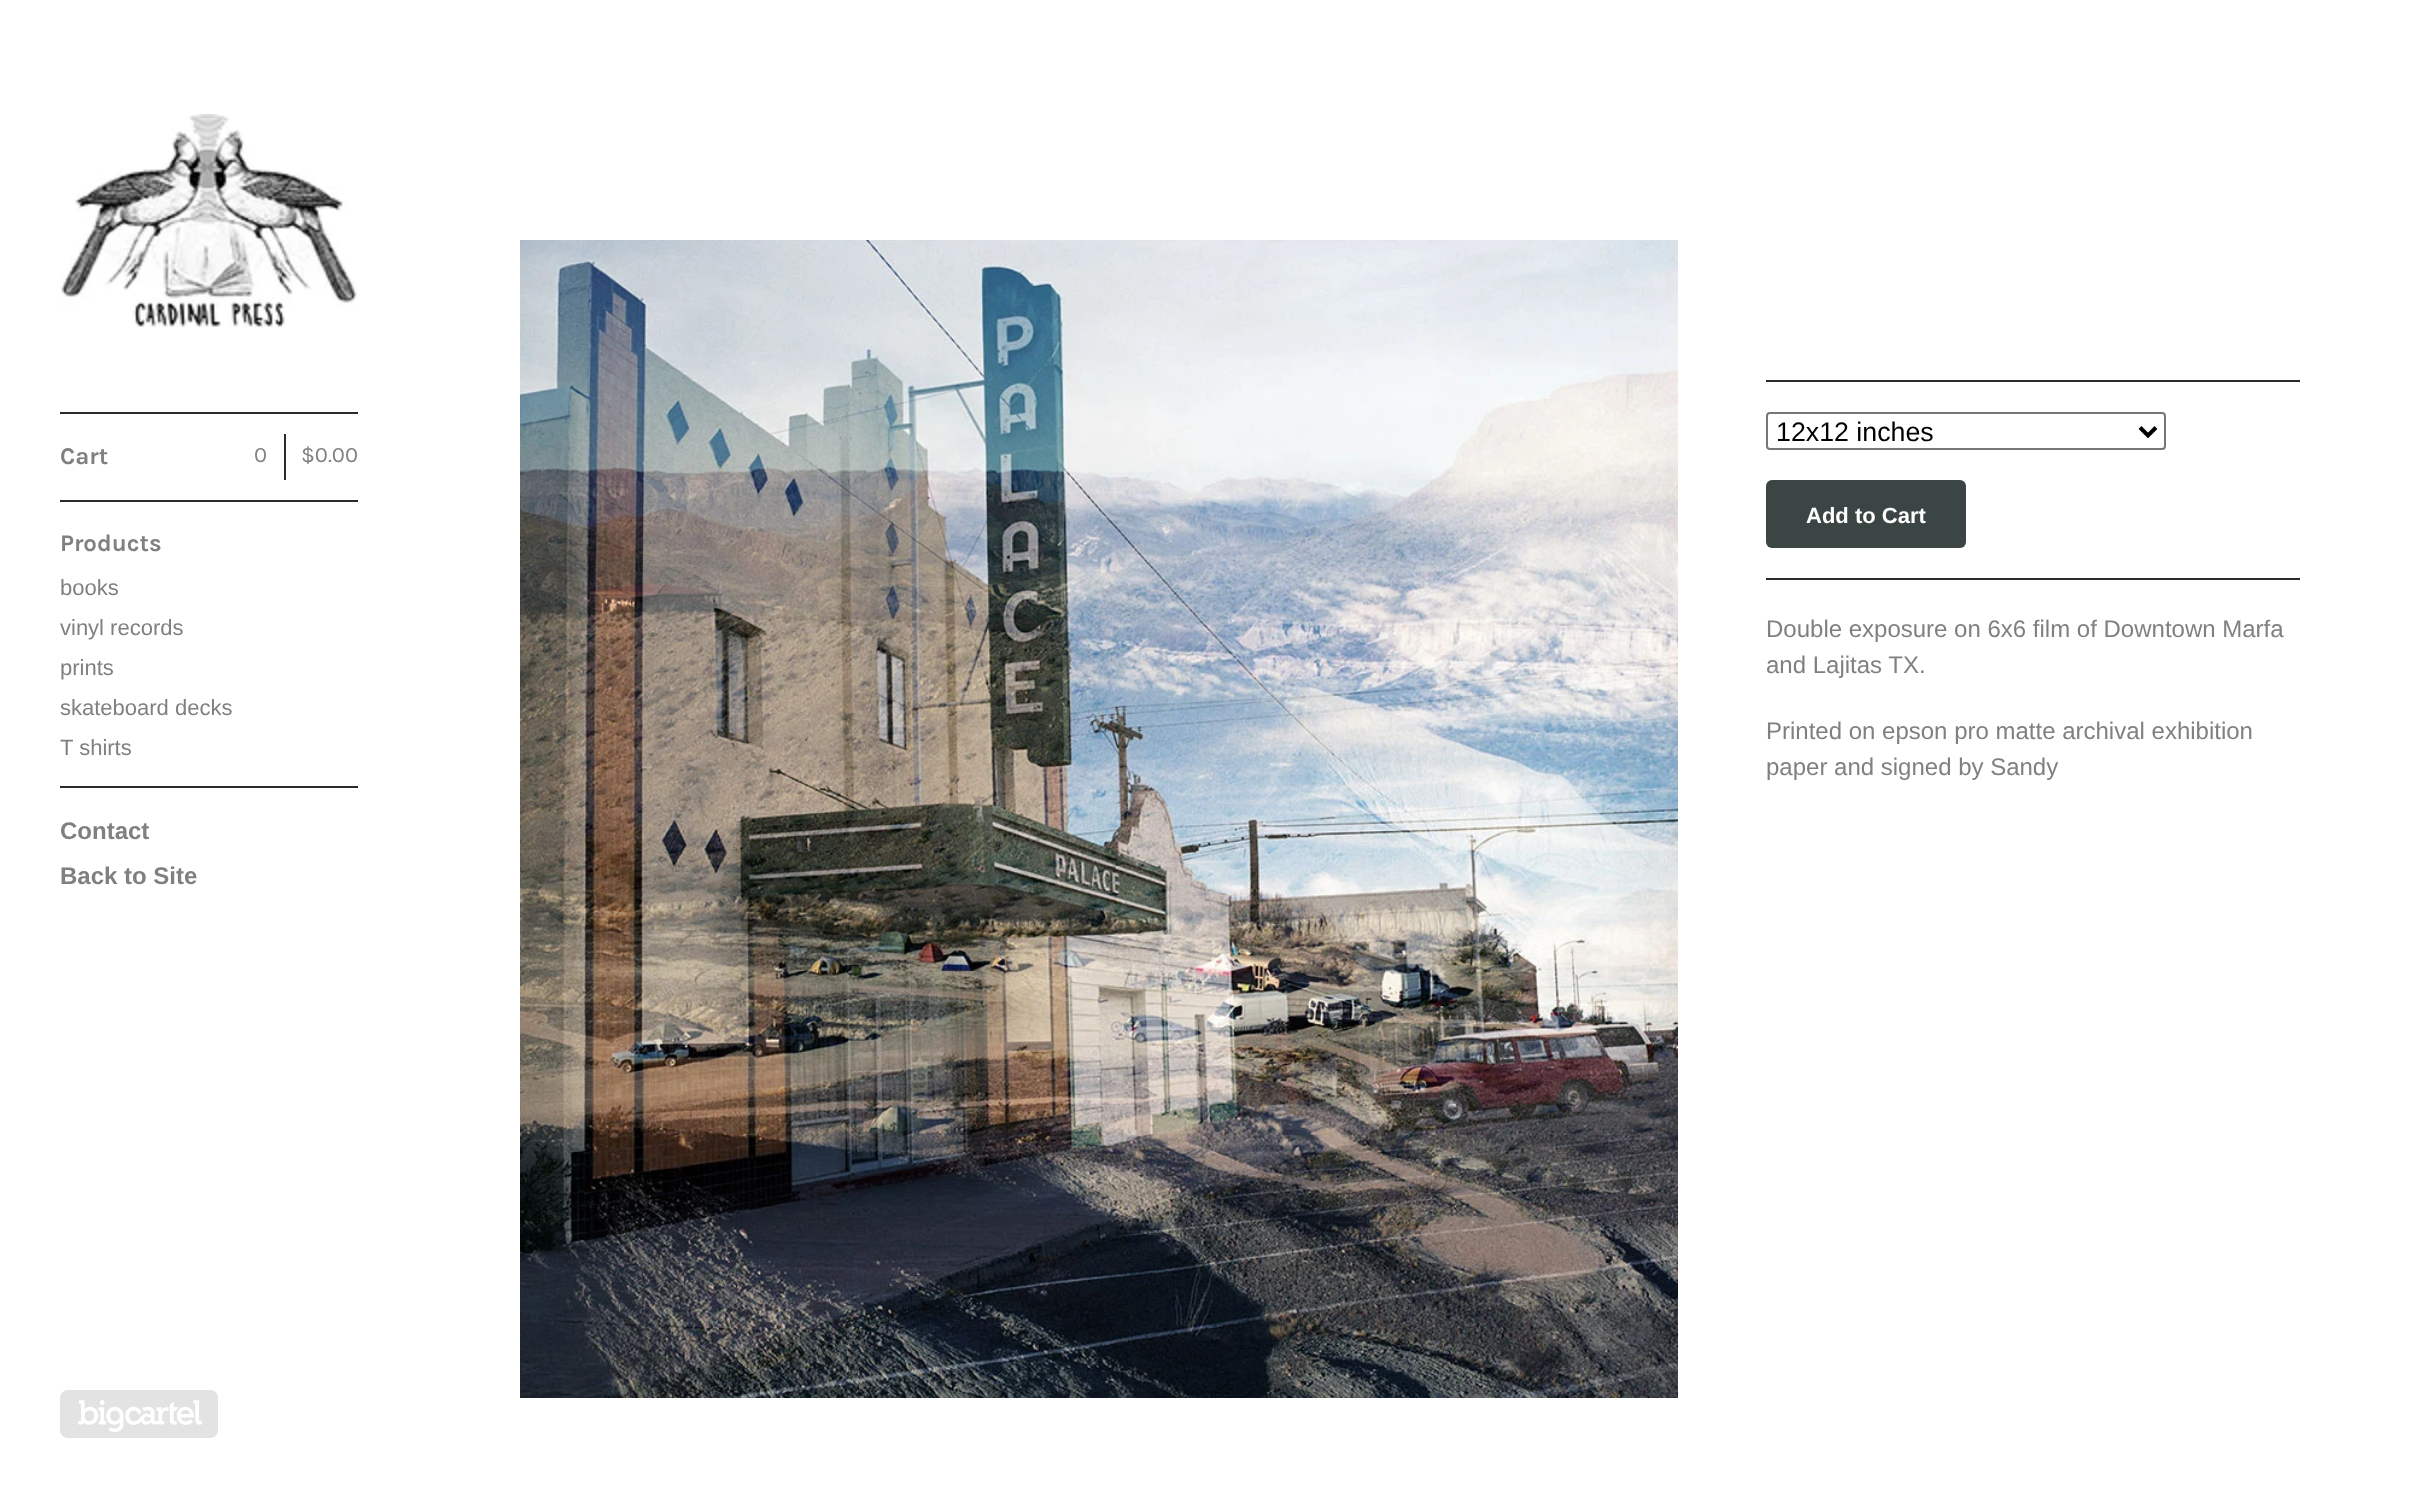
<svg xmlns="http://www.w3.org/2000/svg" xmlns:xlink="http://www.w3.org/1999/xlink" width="2420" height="1497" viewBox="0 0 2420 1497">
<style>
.cls-1{font:bold 24px Karla;fill:#808080}
.cls-2{font:22px Karla;fill:#808080}
.cls-3{font:22px Liberation Sans;fill:#808080}
.cls-4{font:bold 24px Liberation Sans;fill:#808080}
.cls-5{font:26.75px Liberation Sans;fill:#000000}
.cls-6{font:bold 22px Liberation Sans;fill:#ffffff}
.cls-7{font:24px Liberation Sans;fill:#808080}
</style>
<rect width="100%" height="100%" fill="#ffffff"/>
<image xlink:href="image0.png" x="61" y="114" width="296" height="214"/>
<rect fill="#2b2b2b" x="60" y="412" width="298" height="2"/>
<rect fill="#2b2b2b" x="284" y="434" width="2" height="46"/>
<rect fill="#2b2b2b" x="60" y="500" width="298" height="2"/>
<rect fill="#2b2b2b" x="60" y="786" width="298" height="2"/>
<image xlink:href="image1.png" x="60" y="1390" width="158" height="48"/>
<image xlink:href="image2.png" x="520" y="240" width="1158" height="1158"/>
<rect fill="#2b2b2b" x="1766" y="380" width="534" height="2"/>
<rect fill="none" stroke="#767676" stroke-width="2" x="1767" y="413" width="398" height="36" rx="3"/>
<path fill="none" stroke="#000000" stroke-width="4" d="M2140 427.5L2148 435.5L2156 427.5"/>
<rect fill="#3b4543" x="1766" y="480" width="200" height="68" rx="6"/>
<rect fill="#2b2b2b" x="1766" y="578" width="534" height="2"/>
<text class="cls-1" x="60" y="464">Cart</text>
<text class="cls-2" x="254" y="462">0</text>
<text class="cls-2" x="301" y="462">$0.00</text>
<text class="cls-1" x="60" y="551">Products</text>
<text class="cls-3"><tspan x="60" y="595">books</tspan><tspan x="60" y="635">vinyl records</tspan><tspan x="60" y="675">prints</tspan><tspan x="60" y="715">skateboard decks</tspan><tspan x="60" y="755">T shirts</tspan></text>
<text class="cls-4"><tspan x="60" y="839">Contact</tspan><tspan x="60" y="884">Back to Site</tspan></text>
<text class="cls-5" x="1776" y="441">12x12 inches</text>
<text class="cls-6" x="1806" y="523">Add to Cart</text>
<text class="cls-7"><tspan x="1766" y="637">Double exposure on 6x6 film of Downtown Marfa</tspan><tspan x="1766" y="673">and Lajitas TX.</tspan></text>
<text class="cls-7"><tspan x="1766" y="739">Printed on epson pro matte archival exhibition</tspan><tspan x="1766" y="775">paper and signed by Sandy</tspan></text>
</svg>
